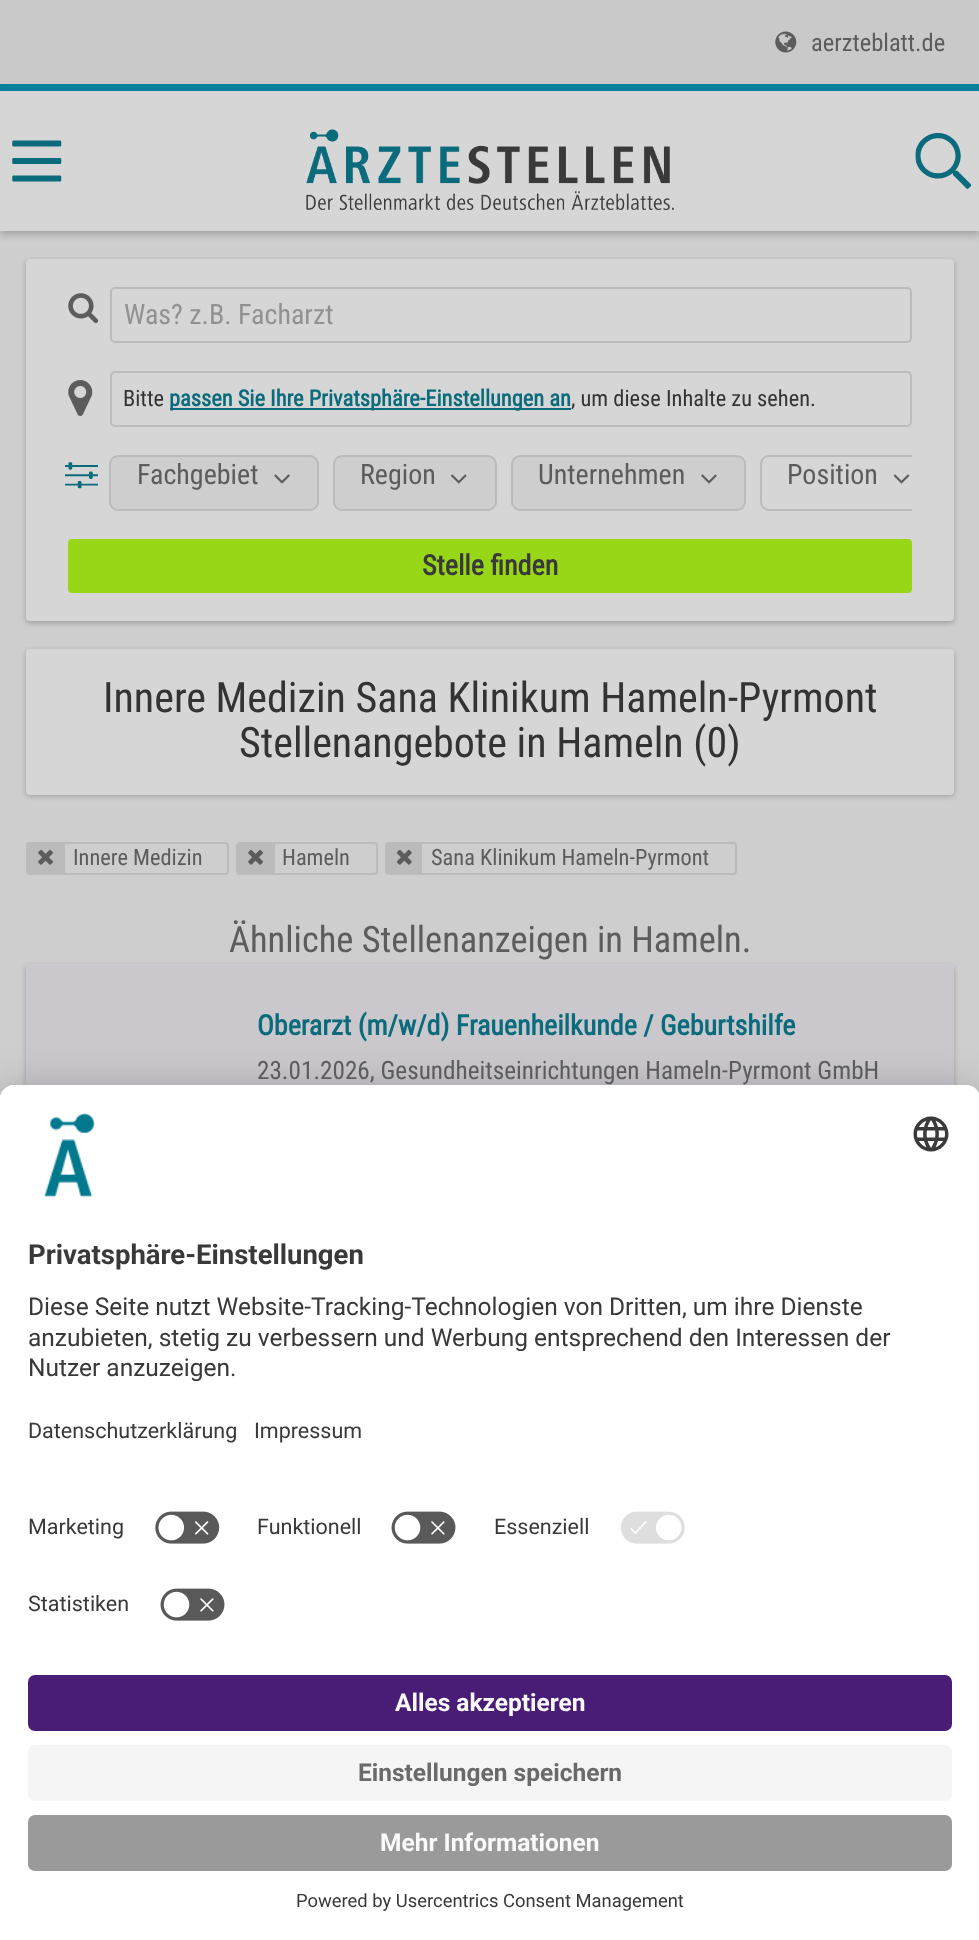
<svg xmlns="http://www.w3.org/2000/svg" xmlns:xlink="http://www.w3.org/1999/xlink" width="979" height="1940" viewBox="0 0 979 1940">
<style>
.cls-1{font:24.5px Roboto Condensed;fill:#5c5c5c}
.cls-2{font:28px Roboto Condensed;fill:#919191}
.cls-3{font:22.4px Roboto Condensed;fill:#333333}
.cls-4{font:bold 22.4px Roboto Condensed;fill:#0a6b7c}
.cls-5{font:28px Roboto Condensed;fill:#5c5c5c}
.cls-6{font:bold 28px Roboto Condensed;fill:#393939}
.cls-7{font:42px Roboto Condensed;fill:#333333}
.cls-8{font:22.4px Roboto Condensed;fill:#5c5c5c}
.cls-9{font:36.4px Roboto Condensed;fill:#5c5c5c}
.cls-10{font:bold 28px Roboto Condensed;fill:#0a6b7c}
.cls-11{font:25.2px Roboto Condensed;fill:#5c5c5c}
.cls-12{font:bold 27.5px Roboto;fill:#393939}
.cls-13{font:24.5px Roboto;fill:#393939}
.cls-14{font:21.5px Roboto;fill:#393939}
.cls-15{font:bold 24.5px Roboto;fill:#fafafa}
.cls-16{font:bold 24.5px Roboto;fill:#6a6a6a}
.cls-17{font:18.4px Roboto;fill:#393939}
</style>
<defs>
<clipPath id="clip1"><rect x="109" y="455" width="803" height="56"/></clipPath>
</defs>
<rect width="100%" height="100%" fill="#cecece"/>
<rect fill="#c9c9c9" x="0" y="0" width="979" height="84"/>
<rect fill="#0a809d" x="0" y="84" width="979" height="7"/>
<image xlink:href="image0.png" x="775" y="31" width="22" height="22"/>
<rect fill="#7e7e7e" fill-opacity="0.5" filter="blur(3.5px)" x="0" y="95" width="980" height="140"/>
<rect fill="#d6d6d6" x="0" y="91" width="979" height="140"/>
<image xlink:href="image1.png" x="12" y="140" width="50" height="42"/>
<image xlink:href="image2.png" x="306" y="129" width="368" height="81"/>
<image xlink:href="image3.png" x="915" y="133" width="56" height="56"/>
<rect fill="#0a0a0a" fill-opacity="0.25" filter="blur(2.5px)" x="26" y="261" width="928" height="362" rx="4"/>
<rect fill="#d6d6d6" x="26" y="259" width="928" height="362" rx="4"/>
<image xlink:href="image4.png" x="68" y="293" width="31" height="31"/>
<rect fill="none" stroke="#bbbbbb" stroke-width="2" x="111" y="288" width="800" height="54" rx="4"/>
<image xlink:href="image5.png" x="68" y="380" width="25" height="36"/>
<rect fill="none" stroke="#bcbcbc" stroke-width="2" x="111" y="372" width="800" height="54" rx="4"/>
<rect fill="#0a6b7c" x="170" y="408" width="401" height="2"/>
<image xlink:href="image6.png" x="65" y="462" width="33" height="27"/>
<rect fill="#cecece" stroke="#bbbbbb" stroke-width="2" x="110" y="456" width="208" height="54" rx="8"/>
<image xlink:href="image7.png" x="274" y="474" width="16" height="10"/>
<rect fill="#cecece" stroke="#bbbbbb" stroke-width="2" x="334" y="456" width="162" height="54" rx="8"/>
<image xlink:href="image8.png" x="451" y="474" width="16" height="10"/>
<rect fill="#cecece" stroke="#bbbbbb" stroke-width="2" x="512" y="456" width="233" height="54" rx="8"/>
<image xlink:href="image7.png" x="701" y="474" width="16" height="10"/>
<g clip-path="url(#clip1)">
<rect fill="none" stroke="#bbbbbb" stroke-width="2" x="761" y="456" width="176" height="54" rx="8"/>
</g>
<image xlink:href="image9.png" x="893" y="474" width="17" height="10"/>
<rect fill="#98d618" stroke="#98d618" stroke-width="2" x="69" y="540" width="842" height="52" rx="3"/>
<rect fill="#0a0a0a" fill-opacity="0.25" filter="blur(2.5px)" x="26" y="651" width="928" height="145" rx="4"/>
<rect fill="#d6d6d6" x="26" y="649" width="928" height="146" rx="4"/>
<rect fill="none" stroke="#bbbbbb" stroke-width="2" x="27" y="843" width="201" height="31" rx="3"/>
<rect fill="#bbbbbb" x="28" y="844" width="37" height="29"/>
<image xlink:href="image10.png" x="38" y="849" width="15" height="16"/>
<rect fill="none" stroke="#bbbbbb" stroke-width="2" x="237" y="843" width="140" height="31" rx="3"/>
<rect fill="#bbbbbb" x="238" y="844" width="37" height="29"/>
<image xlink:href="image10.png" x="248" y="849" width="15" height="16"/>
<rect fill="none" stroke="#bbbbbb" stroke-width="2" x="386" y="843" width="350" height="31" rx="3"/>
<rect fill="#bbbbbb" x="387" y="844" width="35" height="29"/>
<image xlink:href="image11.png" x="396" y="849" width="16" height="16"/>
<rect fill="#0a0a0a" fill-opacity="0.25" filter="blur(2.5px)" x="26" y="966" width="928" height="308" rx="4"/>
<rect fill="#cac8cd" x="26" y="964" width="928" height="121"/>
<rect fill="#000000" fill-opacity="0.3" filter="blur(24.5px)" x="0" y="1120" width="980" height="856" rx="14"/>
<rect fill="#000000" fill-opacity="0.22" filter="blur(23px)" x="0" y="1094" width="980" height="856" rx="14"/>
<path fill="#ffffff" d="M14 1085H966C973.5 1085 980 1091.5 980 1099V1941H0V1099C0 1091.5 6.5 1085 14 1085Z"/>
<path fill="#ffffff" d="M14 1085H966C973.5 1085 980 1091.5 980 1099V1654H0V1099C0 1091.5 6.5 1085 14 1085Z"/>
<path fill="#ffffff" d="M14 1085H966C973.5 1085 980 1091.5 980 1099V1500H0V1099C0 1091.5 6.5 1085 14 1085Z"/>
<image xlink:href="image12.png" x="44" y="1113" width="52" height="85"/>
<image xlink:href="image13.png" x="913" y="1116" width="36" height="36"/>
<image xlink:href="image14.png" x="155" y="1511" width="65" height="33"/>
<image xlink:href="image15.png" x="391" y="1511" width="65" height="33"/>
<image xlink:href="image16.png" x="620" y="1511" width="65" height="33"/>
<image xlink:href="image15.png" x="160" y="1588" width="65" height="33"/>
<rect fill="#491d75" x="28" y="1675" width="924" height="56" rx="7"/>
<rect fill="#f5f5f5" x="28" y="1745" width="924" height="56" rx="7"/>
<rect fill="#9a9a9a" x="28" y="1815" width="924" height="56" rx="7"/>
<text class="cls-1" x="811" y="51">aerzteblatt.de</text>
<text class="cls-2" x="124" y="324">Was? z.B. Facharzt</text>
<text class="cls-3" x="123" y="406">Bitte</text>
<text class="cls-4" x="169" y="406">passen Sie Ihre Privatsphäre-Einstellungen an</text>
<text class="cls-3" x="571" y="406">, um diese Inhalte zu sehen.</text>
<text class="cls-5" x="137" y="484">Fachgebiet</text>
<text class="cls-5" x="360" y="484">Region</text>
<text class="cls-5" x="538" y="484">Unternehmen</text>
<text class="cls-5" x="787" y="484">Position</text>
<text class="cls-6" x="422" y="575">Stelle finden</text>
<text class="cls-7" x="103" y="712">Innere Medizin Sana Klinikum Hameln-Pyrmont</text>
<text class="cls-7" x="239" y="757">Stellenangebote in Hameln (0)</text>
<text class="cls-8" x="73" y="865">Innere Medizin</text>
<text class="cls-8" x="282" y="865">Hameln</text>
<text class="cls-8" x="431" y="865">Sana Klinikum Hameln-Pyrmont</text>
<text class="cls-9" x="229" y="952">Ähnliche Stellenanzeigen in Hameln.</text>
<text class="cls-10" x="257" y="1035">Oberarzt (m/w/d) Frauenheilkunde / Geburtshilfe</text>
<text class="cls-11" x="257" y="1079">23.01.2026, Gesundheitseinrichtungen Hameln-Pyrmont GmbH</text>
<text class="cls-12" x="28" y="1264">Privatsphäre-Einstellungen</text>
<text class="cls-13"><tspan x="28" y="1315">Diese Seite nutzt Website-Tracking-Technologien von Dritten, um ihre Dienste</tspan><tspan x="28" y="1346">anzubieten, stetig zu verbessern und Werbung entsprechend den Interessen der</tspan><tspan x="28" y="1376">Nutzer anzuzeigen.</tspan></text>
<text class="cls-14" x="28" y="1438">Datenschutzerklärung</text>
<text class="cls-14" x="254" y="1438">Impressum</text>
<text class="cls-14" x="28" y="1534">Marketing</text>
<text class="cls-14" x="257" y="1534">Funktionell</text>
<text class="cls-14" x="494" y="1534">Essenziell</text>
<text class="cls-14" x="28" y="1611">Statistiken</text>
<text class="cls-15" x="395" y="1711">Alles akzeptieren</text>
<text class="cls-16" x="358" y="1781">Einstellungen speichern</text>
<text class="cls-15" x="380" y="1851">Mehr Informationen</text>
<text class="cls-17" x="296" y="1907">Powered by Usercentrics Consent Management</text>
</svg>
